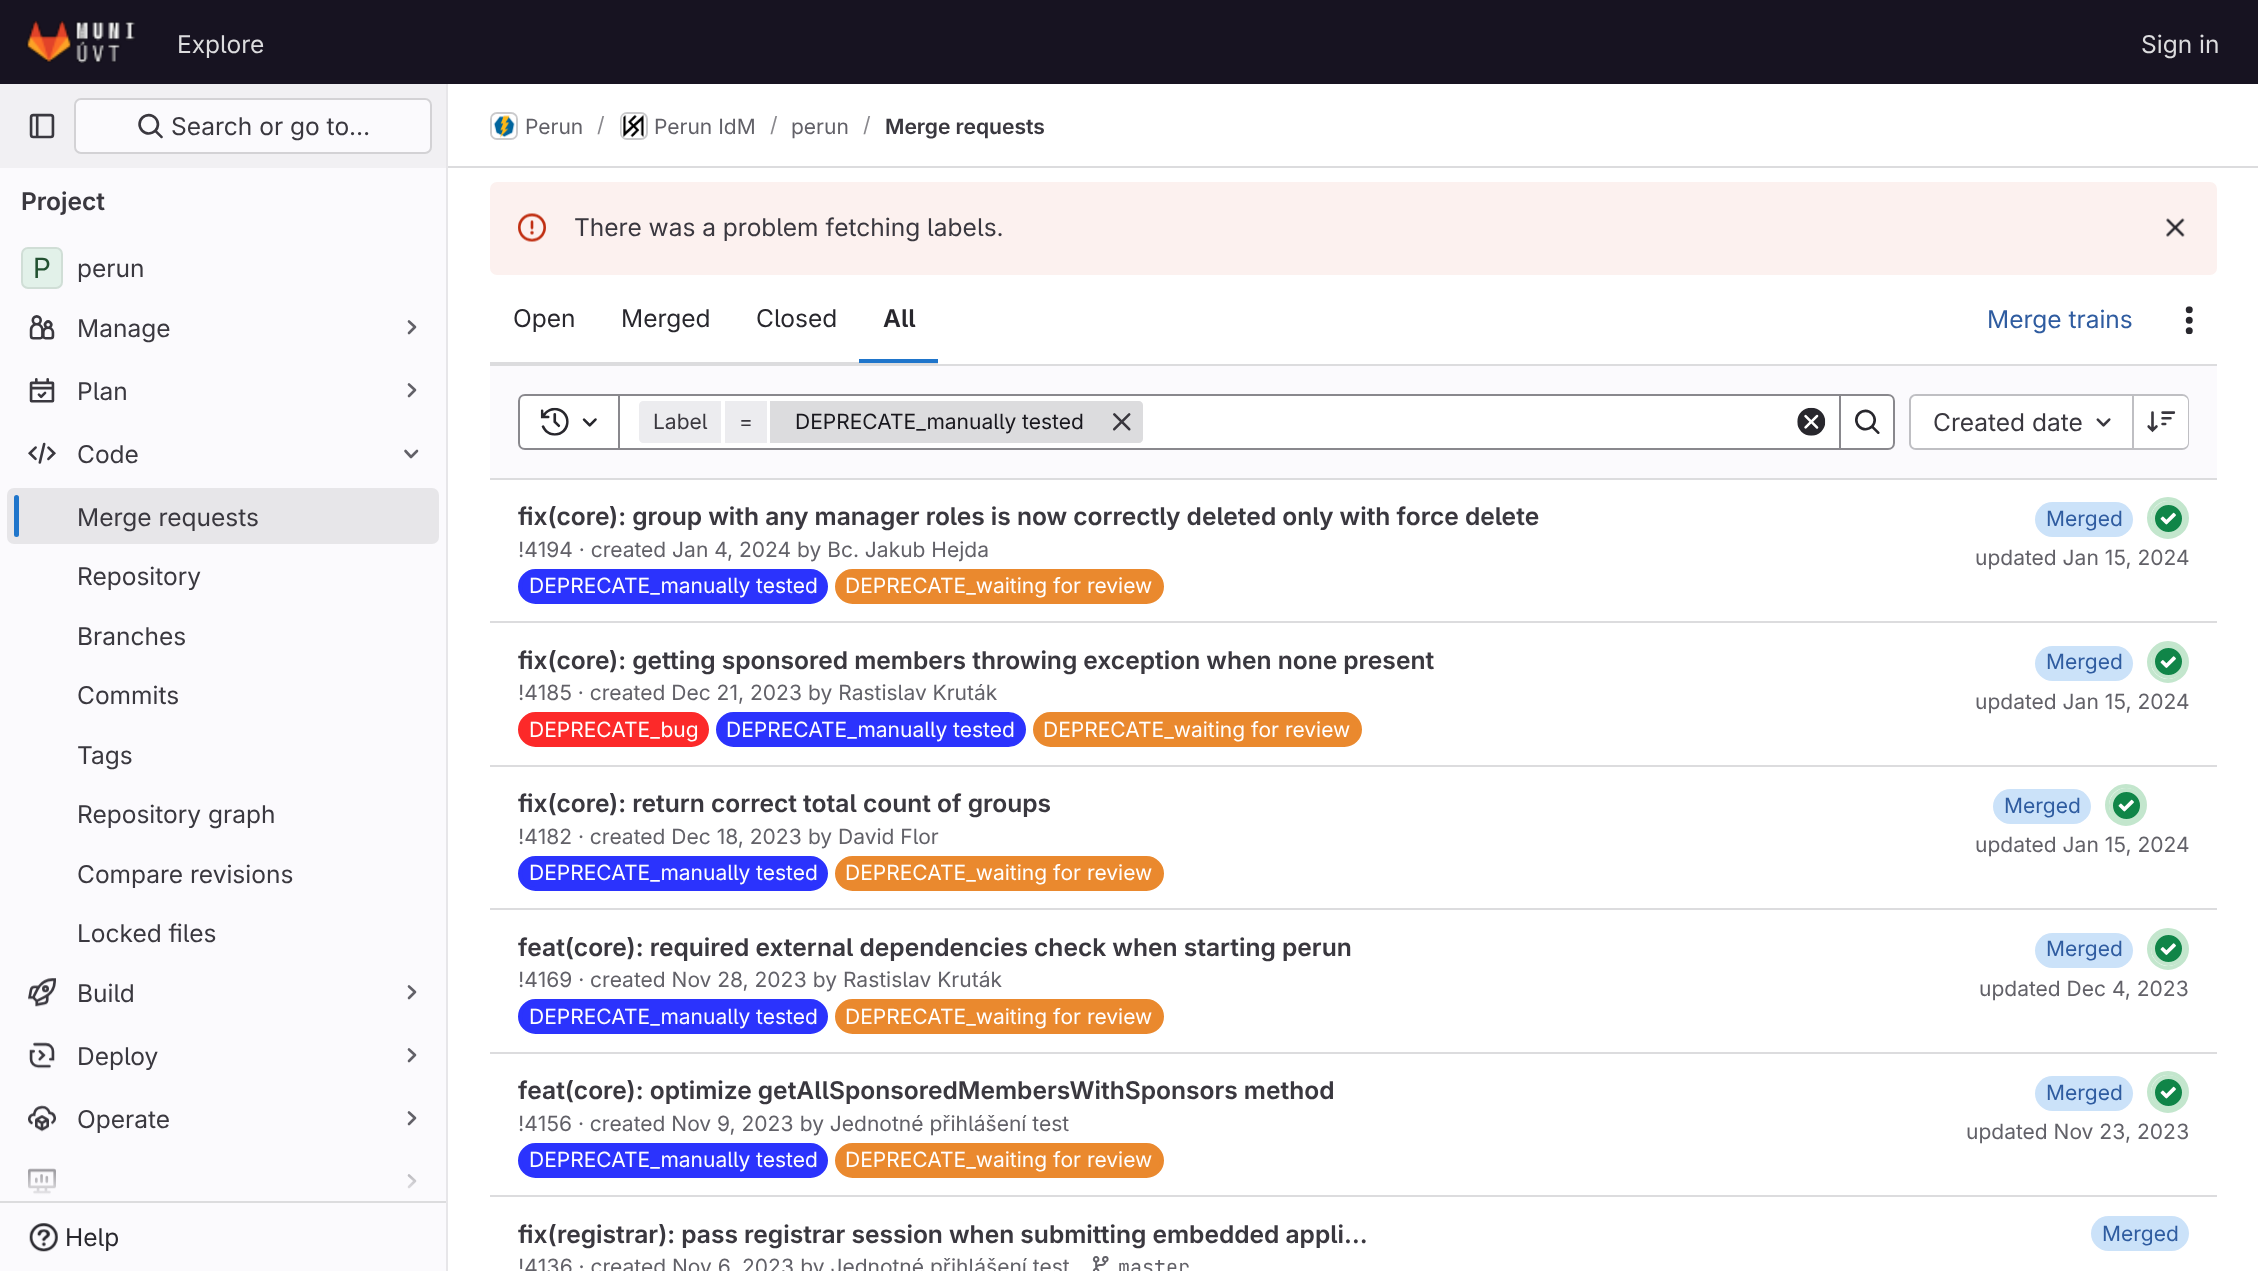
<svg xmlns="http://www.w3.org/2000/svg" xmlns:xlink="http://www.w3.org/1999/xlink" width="2258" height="1271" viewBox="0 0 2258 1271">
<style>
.cls-1{font:24.5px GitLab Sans;fill:#dcdcde}
.cls-2{font:24.5px GitLab Sans;fill:#3a383f}
.cls-3{font:600 24.5px GitLab Sans;fill:#3a383f}
.cls-4{font:28px 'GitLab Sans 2';fill:#225131}
.cls-5{font:24.5px GitLab Sans;fill:#28272d}
.cls-6{font:21px GitLab Sans;fill:#626168}
.cls-7{font:21px GitLab Sans;fill:#89888d}
.cls-8{font:600 21px GitLab Sans;fill:#3a383f}
.cls-9{font:600 24.5px GitLab Sans;fill:#28272d}
.cls-10{font:24.5px GitLab Sans;fill:#2f5ca0}
.cls-11{font:21px GitLab Sans;fill:#3a383f}
.cls-12{font:21px GitLab Sans;fill:#18171d}
.cls-13{font:21px GitLab Sans;fill:#ffffff}
.cls-14{font:21px GitLab Sans;fill:#2f5ca0}
.cls-15{font:20px JetBrains Mono;fill:#626168}
</style>
<defs>
<linearGradient id="g1" gradientUnits="userSpaceOnUse" x1="223" y1="1138" x2="223" y2="1201"><stop offset="0" stop-color="#fbfafd" stop-opacity="0"/><stop offset="1" stop-color="#fbfafd"/></linearGradient>
</defs>
<rect width="100%" height="100%" fill="#ffffff"/>
<rect fill="#171321" x="0" y="0" width="2258" height="84"/>
<image xlink:href="image0.png" x="26" y="21" width="110" height="42"/>
<rect fill="#fbfafd" x="0" y="168" width="446" height="1103"/>
<rect fill="#e7e6e9" x="446" y="84" width="2" height="1187"/>
<rect fill="#f1f0f3" x="0" y="84" width="446" height="84"/>
<image xlink:href="image1.png" x="29" y="113" width="26" height="26"/>
<rect fill="#fbfafd" x="74" y="98" width="358" height="56" rx="7"/>
<rect fill="none" stroke="#050506" stroke-opacity="0.16" stroke-width="2" x="75" y="99" width="356" height="54" rx="6"/>
<image xlink:href="image2.png" x="138" y="113" width="25" height="26"/>
<rect fill="#dcdcde" x="0" y="1201" width="446" height="2"/>
<rect fill="#e2f1e9" x="21" y="247" width="42" height="42" rx="7"/>
<rect fill="none" stroke="#050506" stroke-opacity="0.08" stroke-width="2" x="22" y="248" width="40" height="40" rx="6"/>
<image xlink:href="image3.png" x="29" y="315" width="26" height="25"/>
<path fill="none" stroke="#626168" stroke-width="2.6" stroke-linecap="round" stroke-linejoin="round" d="M409 321.5L415 327L409 333"/>
<image xlink:href="image4.png" x="29" y="378" width="26" height="25"/>
<path fill="none" stroke="#626168" stroke-width="2.6" stroke-linecap="round" stroke-linejoin="round" d="M409 384.5L415 390L409 396"/>
<image xlink:href="image5.png" x="28" y="442" width="28" height="22"/>
<path fill="none" stroke="#626168" stroke-width="2.6" stroke-linecap="round" stroke-linejoin="round" d="M417 451L411 457L405.5 451"/>
<rect fill="#e7e6e9" x="7" y="488" width="432" height="56" rx="7"/>
<rect fill="#1f75cb" x="14" y="495" width="5" height="42" rx="2.5"/>
<image xlink:href="image6.png" x="28" y="978" width="28" height="29"/>
<path fill="none" stroke="#626168" stroke-width="2.6" stroke-linecap="round" stroke-linejoin="round" d="M409 986.5L415 992L409 998"/>
<image xlink:href="image7.png" x="29" y="1042" width="26" height="27"/>
<path fill="none" stroke="#626168" stroke-width="2.6" stroke-linecap="round" stroke-linejoin="round" d="M409 1049.5L415 1055L409 1061"/>
<image xlink:href="image8.png" x="28" y="1105" width="28" height="27"/>
<path fill="none" stroke="#626168" stroke-width="2.6" stroke-linecap="round" stroke-linejoin="round" d="M409 1112.5L415 1118L409 1124"/>
<image xlink:href="image9.png" x="28" y="1168" width="28" height="27"/>
<path fill="none" stroke="#626168" stroke-width="2.6" stroke-linecap="round" stroke-linejoin="round" d="M409 1175.5L415 1181L409 1187"/>
<rect fill="url(#g1)" x="28" y="1168" width="389" height="27"/>
<image xlink:href="image10.png" x="29" y="1223" width="29" height="29"/>
<rect fill="#dcdcde" x="448" y="166" width="1810" height="2"/>
<rect fill="none" stroke="#dcdcde" stroke-width="2" x="491" y="113" width="26" height="26" rx="6"/>
<image xlink:href="image11.png" x="492" y="115" width="24" height="23"/>
<rect fill="none" stroke="#050506" stroke-opacity="0.08" stroke-width="2" x="491" y="113" width="26" height="26" rx="6"/>
<rect fill="none" stroke="#dcdcde" stroke-width="2" x="621" y="113" width="26" height="26" rx="6"/>
<image xlink:href="image12.png" x="621" y="114" width="24" height="24"/>
<rect fill="none" stroke="#050506" stroke-opacity="0.08" stroke-width="2" x="621" y="113" width="26" height="26" rx="6"/>
<rect fill="#fcf1ef" x="490" y="182" width="1727" height="93" rx="7"/>
<image xlink:href="image13.png" x="518" y="213" width="28" height="29"/>
<image xlink:href="image14.png" x="2166" y="218" width="19" height="19"/>
<rect fill="#dcdcde" x="490" y="364" width="1727" height="2"/>
<rect fill="#dcdcde" x="490" y="362" width="448" height="2"/>
<rect fill="#1f75cb" x="859" y="359" width="79" height="4"/>
<image xlink:href="image15.png" x="2185" y="306" width="8" height="29"/>
<rect fill="#fbfafd" x="490" y="366" width="1727" height="112"/>
<rect fill="#dcdcde" x="490" y="478" width="1727" height="2"/>
<rect fill="#ffffff" stroke="#89888d" stroke-width="2" x="619" y="395" width="1221" height="54"/>
<path fill="#ffffff" stroke="#89888d" stroke-width="2" d="M525 395H619V449H525C521.5 449 519 446.5 519 443V401C519 397.5 521.5 395 525 395Z"/>
<image xlink:href="image16.png" x="540" y="407" width="29" height="29"/>
<image xlink:href="image17.png" x="582" y="418" width="15" height="9"/>
<path fill="#ececef" d="M643 401H721V443H643C641 443 639 441 639 439V405C639 403 641 401 643 401Z"/>
<rect fill="#ececef" x="725" y="401" width="42" height="42"/>
<path fill="#dcdcde" d="M770 401H1139C1141 401 1143 403 1143 405V439C1143 441 1141 443 1139 443H770Z"/>
<image xlink:href="image18.png" x="1112" y="413" width="19" height="18"/>
<image xlink:href="image19.png" x="1797" y="407" width="29" height="29"/>
<path fill="#ffffff" stroke="#89888d" stroke-width="2" d="M1840 395H1888C1891.5 395 1894 397.5 1894 401V443C1894 446.5 1891.5 449 1888 449H1840Z"/>
<image xlink:href="image20.png" x="1855" y="409" width="25" height="25"/>
<path fill="#ffffff" d="M1916 396H2132V448H1916C1913 448 1911 446 1911 443V401C1911 398 1913 396 1916 396Z"/>
<path fill="#bfbfc3" fill-rule="evenodd" d="M1916 394H2132V450H1916C1912 450 1909 447 1909 443V401C1909 397 1912 394 1916 394ZM1916 396H2132V448H1916C1913 448 1911 446 1911 443V401C1911 398 1913 396 1916 396Z"/>
<image xlink:href="image21.png" x="2096" y="418" width="15" height="9"/>
<path fill="#ffffff" d="M2133 396H2183C2186 396 2188 398 2188 401V443C2188 446 2186 448 2183 448H2133Z"/>
<path fill="#bfbfc3" fill-rule="evenodd" d="M2133 394H2182C2186 394 2189 397 2189 401V443C2189 447 2186 450 2182 450H2133ZM2133 396H2182C2185 396 2188 398 2188 401V443C2188 446 2185 448 2182 448H2133Z"/>
<rect fill="#bfbfc3" x="2132" y="394" width="2" height="56"/>
<image xlink:href="image22.png" x="2147" y="411" width="29" height="22"/>
<rect fill="#dcdcde" x="490" y="621" width="1727" height="2"/>
<rect fill="#2b33fd" stroke="#2b33fd" stroke-width="4" x="520" y="571" width="306" height="31" rx="15.5"/>
<rect fill="#ea892e" stroke="#ea892e" stroke-width="4" x="837" y="571" width="325" height="31" rx="15.5"/>
<rect fill="#cbe2f9" x="2035" y="502" width="98" height="35" rx="17.5"/>
<circle fill="none" stroke="#c3e6cd" stroke-width="4" cx="2168" cy="518" r="19"/>
<circle fill="#108548" stroke="#c3e6cd" stroke-width="4" cx="2168.5" cy="518.5" r="15.5"/>
<image xlink:href="image23.png" x="2160" y="512" width="16" height="13"/>
<rect fill="#dcdcde" x="490" y="765" width="1727" height="2"/>
<rect fill="#fc2929" stroke="#fc2929" stroke-width="4" x="520" y="714" width="187" height="31" rx="15.5"/>
<rect fill="#2b33fd" stroke="#2b33fd" stroke-width="4" x="718" y="714" width="306" height="31" rx="15.5"/>
<rect fill="#ea892e" stroke="#ea892e" stroke-width="4" x="1035" y="714" width="325" height="31" rx="15.5"/>
<rect fill="#cbe2f9" x="2035" y="646" width="98" height="35" rx="17.5"/>
<circle fill="none" stroke="#c3e6cd" stroke-width="4" cx="2168" cy="662" r="19"/>
<circle fill="#108548" stroke="#c3e6cd" stroke-width="4" cx="2168.5" cy="661.5" r="15.5"/>
<image xlink:href="image24.png" x="2160" y="656" width="16" height="12"/>
<rect fill="#dcdcde" x="490" y="908" width="1727" height="2"/>
<rect fill="#2b33fd" stroke="#2b33fd" stroke-width="4" x="520" y="858" width="306" height="31" rx="15.5"/>
<rect fill="#ea892e" stroke="#ea892e" stroke-width="4" x="837" y="858" width="325" height="31" rx="15.5"/>
<rect fill="#cbe2f9" x="1993" y="789" width="98" height="35" rx="17.5"/>
<circle fill="none" stroke="#c3e6cd" stroke-width="4" cx="2126" cy="805" r="19"/>
<circle fill="#108548" stroke="#c3e6cd" stroke-width="4" cx="2126.5" cy="805.5" r="15.5"/>
<image xlink:href="image23.png" x="2118" y="799" width="16" height="13"/>
<rect fill="#dcdcde" x="490" y="1052" width="1727" height="2"/>
<rect fill="#2b33fd" stroke="#2b33fd" stroke-width="4" x="520" y="1001" width="306" height="31" rx="15.5"/>
<rect fill="#ea892e" stroke="#ea892e" stroke-width="4" x="837" y="1001" width="325" height="31" rx="15.5"/>
<rect fill="#cbe2f9" x="2035" y="933" width="98" height="35" rx="17.5"/>
<circle fill="none" stroke="#c3e6cd" stroke-width="4" cx="2168" cy="949" r="19"/>
<circle fill="#108548" stroke="#c3e6cd" stroke-width="4" cx="2168.5" cy="948.5" r="15.5"/>
<image xlink:href="image24.png" x="2160" y="943" width="16" height="12"/>
<rect fill="#dcdcde" x="490" y="1195" width="1727" height="2"/>
<rect fill="#2b33fd" stroke="#2b33fd" stroke-width="4" x="520" y="1145" width="306" height="31" rx="15.5"/>
<rect fill="#ea892e" stroke="#ea892e" stroke-width="4" x="837" y="1145" width="325" height="31" rx="15.5"/>
<rect fill="#cbe2f9" x="2035" y="1076" width="98" height="35" rx="17.5"/>
<circle fill="none" stroke="#c3e6cd" stroke-width="4" cx="2168" cy="1092" r="19"/>
<circle fill="#108548" stroke="#c3e6cd" stroke-width="4" cx="2168.5" cy="1092.5" r="15.5"/>
<image xlink:href="image23.png" x="2160" y="1086" width="16" height="13"/>
<image xlink:href="image25.png" x="1092" y="1256" width="17" height="15"/>
<rect fill="#cbe2f9" x="2091" y="1216" width="98" height="35" rx="17.5"/>
<text class="cls-1" x="177" y="53">Explore</text>
<text class="cls-1" x="2141" y="53">Sign in</text>
<text class="cls-2" x="171" y="135">Search or go to…</text>
<text class="cls-3" x="21" y="210">Project</text>
<text class="cls-4" x="33" y="278">P</text>
<text class="cls-2" x="77" y="277">perun</text>
<text class="cls-2" x="77" y="337">Manage</text>
<text class="cls-2" x="77" y="400">Plan</text>
<text class="cls-2" x="77" y="463">Code</text>
<text class="cls-2" x="77" y="526">Merge requests</text>
<text class="cls-2" x="77" y="585">Repository</text>
<text class="cls-2" x="77" y="645">Branches</text>
<text class="cls-2" x="77" y="704">Commits</text>
<text class="cls-2" x="77" y="764">Tags</text>
<text class="cls-2" x="77" y="823">Repository graph</text>
<text class="cls-2" x="77" y="883">Compare revisions</text>
<text class="cls-2" x="77" y="942">Locked files</text>
<text class="cls-2" x="77" y="1002">Build</text>
<text class="cls-2" x="77" y="1065">Deploy</text>
<text class="cls-2" x="77" y="1128">Operate</text>
<text class="cls-5" x="65" y="1246">Help</text>
<text class="cls-6" x="525" y="134">Perun</text>
<text class="cls-7" x="597" y="132">/</text>
<text class="cls-6" x="654" y="134">Perun IdM</text>
<text class="cls-7" x="770" y="132">/</text>
<text class="cls-6" x="791" y="134">perun</text>
<text class="cls-7" x="863" y="132">/</text>
<text class="cls-8" x="885" y="134">Merge requests</text>
<text class="cls-2" x="574" y="236">There was a problem fetching labels.</text>
<text class="cls-5" x="513" y="327">Open</text>
<text class="cls-5" x="621" y="327">Merged</text>
<text class="cls-5" x="756" y="327">Closed</text>
<text class="cls-9" x="883" y="327">All</text>
<text class="cls-10" x="1987" y="328">Merge trains</text>
<text class="cls-11" x="653" y="429">Label</text>
<text class="cls-11" x="739" y="429">=</text>
<text class="cls-12" x="795" y="429">DEPRECATE_manually tested</text>
<text class="cls-2" x="1933" y="431">Created date</text>
<text class="cls-3" x="518" y="525">fix(core): group with any manager roles is now correctly deleted only with force delete</text>
<text class="cls-6" x="518" y="557">!4194 · created Jan 4, 2024 by Bc. Jakub Hejda</text>
<text class="cls-13" x="529" y="593">DEPRECATE_manually tested</text>
<text class="cls-13" x="845" y="593">DEPRECATE_waiting for review</text>
<text class="cls-14" x="2046" y="526">Merged</text>
<text class="cls-6" x="1975" y="565">updated Jan 15, 2024</text>
<text class="cls-3" x="518" y="669">fix(core): getting sponsored members throwing exception when none present</text>
<text class="cls-6" x="518" y="700">!4185 · created Dec 21, 2023 by Rastislav Kruták</text>
<text class="cls-13" x="529" y="737">DEPRECATE_bug</text>
<text class="cls-13" x="726" y="737">DEPRECATE_manually tested</text>
<text class="cls-13" x="1043" y="737">DEPRECATE_waiting for review</text>
<text class="cls-14" x="2046" y="669">Merged</text>
<text class="cls-6" x="1975" y="709">updated Jan 15, 2024</text>
<text class="cls-3" x="518" y="812">fix(core): return correct total count of groups</text>
<text class="cls-6" x="518" y="844">!4182 · created Dec 18, 2023 by David Flor</text>
<text class="cls-13" x="529" y="880">DEPRECATE_manually tested</text>
<text class="cls-13" x="845" y="880">DEPRECATE_waiting for review</text>
<text class="cls-14" x="2004" y="813">Merged</text>
<text class="cls-6" x="1975" y="852">updated Jan 15, 2024</text>
<text class="cls-3" x="518" y="956">feat(core): required external dependencies check when starting perun</text>
<text class="cls-6" x="518" y="987">!4169 · created Nov 28, 2023 by Rastislav Kruták</text>
<text class="cls-13" x="529" y="1024">DEPRECATE_manually tested</text>
<text class="cls-13" x="845" y="1024">DEPRECATE_waiting for review</text>
<text class="cls-14" x="2046" y="956">Merged</text>
<text class="cls-6" x="1979" y="996">updated Dec 4, 2023</text>
<text class="cls-3" x="518" y="1099">feat(core): optimize getAllSponsoredMembersWithSponsors method</text>
<text class="cls-6" x="518" y="1131">!4156 · created Nov 9, 2023 by Jednotné přihlášení test</text>
<text class="cls-13" x="529" y="1167">DEPRECATE_manually tested</text>
<text class="cls-13" x="845" y="1167">DEPRECATE_waiting for review</text>
<text class="cls-14" x="2046" y="1100">Merged</text>
<text class="cls-6" x="1966" y="1139">updated Nov 23, 2023</text>
<text class="cls-3" x="518" y="1243">fix(registrar): pass registrar session when submitting embedded appli…</text>
<text class="cls-6" x="518" y="1274">!4136 · created Nov 6, 2023 by Jednotné přihlášení test</text>
<text class="cls-15" x="1118" y="1274">master</text>
<text class="cls-14" x="2102" y="1241">Merged</text>
</svg>
